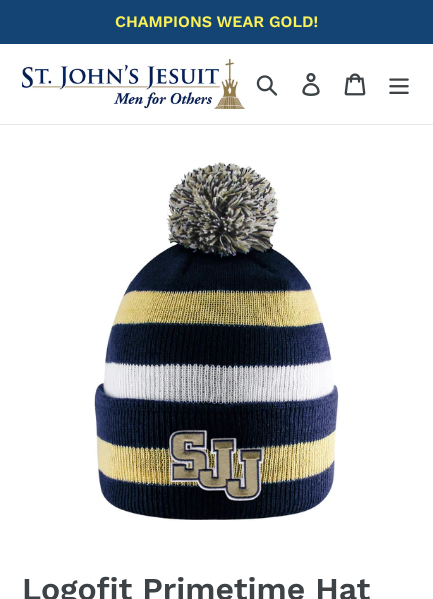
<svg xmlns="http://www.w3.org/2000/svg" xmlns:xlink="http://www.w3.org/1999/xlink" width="433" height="599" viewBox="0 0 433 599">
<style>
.cls-1{font:600 16px Work Sans;fill:#fcf258}
.cls-2{font:600 32px Work Sans;fill:#3d4246}
</style>
<rect width="100%" height="100%" fill="#ffffff"/>
<rect fill="#134474" x="0" y="0" width="433" height="44"/>
<rect fill="#e8e9eb" x="0" y="124" width="433" height="1"/>
<image xlink:href="image0.png" x="22" y="59" width="223" height="50"/>
<image xlink:href="image1.png" x="256" y="75" width="22" height="21"/>
<image xlink:href="image2.png" x="302" y="73" width="18" height="23"/>
<image xlink:href="image3.png" x="344" y="73" width="22" height="23"/>
<image xlink:href="image4.png" x="389" y="78" width="20" height="16"/>
<image xlink:href="image5.png" x="94" y="162" width="245" height="359"/>
<text class="cls-1" x="115" y="27">CHAMPIONS WEAR GOLD!</text>
<text class="cls-2" x="22" y="600">Logofit Primetime Hat</text>
</svg>
